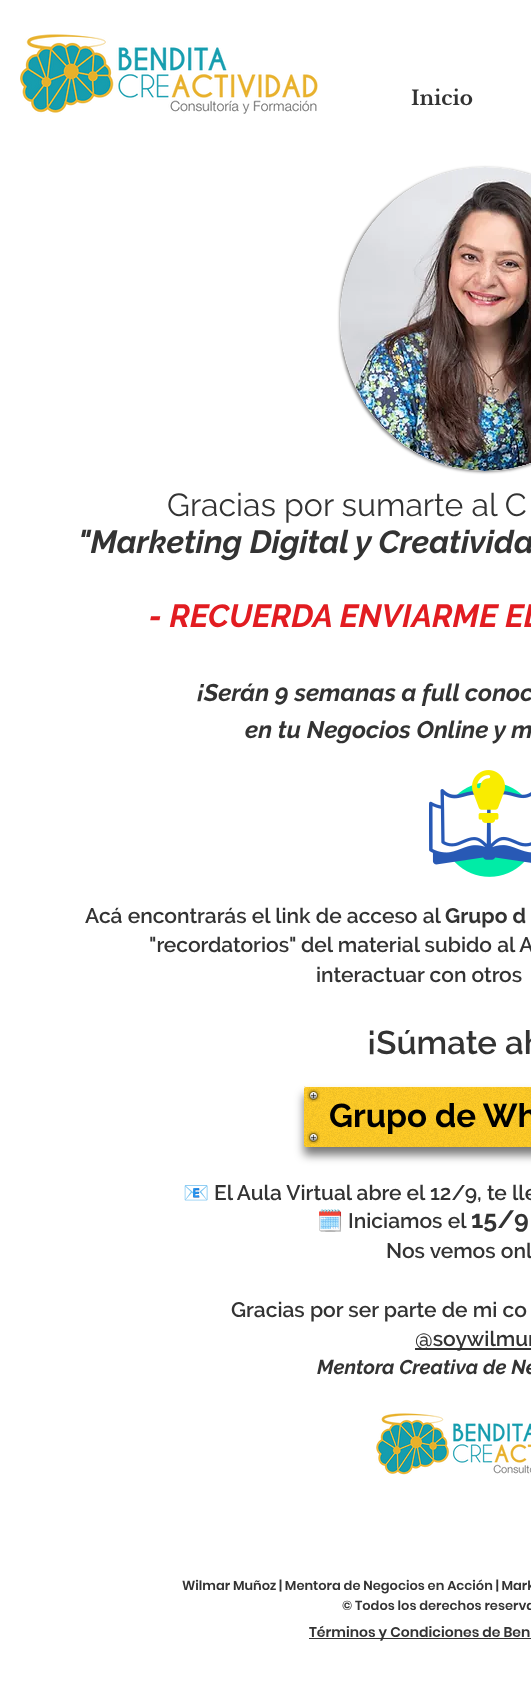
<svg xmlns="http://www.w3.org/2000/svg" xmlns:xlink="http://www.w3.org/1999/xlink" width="531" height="1688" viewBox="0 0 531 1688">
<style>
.cls-1{font:bold 20px Libre Baskerville;fill:#333333}
.cls-2{font:32px Raleway;fill:#333333}
.cls-3{font:italic bold 32px Raleway;fill:#333333}
.cls-4{font:italic bold 32px Raleway;fill:#e21c21}
.cls-5{font:italic bold 24px Raleway;fill:#333333}
.cls-6{font:600 21px Raleway;fill:#333333}
.cls-7{font:bold 21px Raleway;fill:#333333}
.cls-8{font:600 33px Raleway;fill:#333333}
.cls-9{font:bold 33px Raleway;fill:#000000}
.cls-10{font:21px Noto Color Emoji;fill:#333333}
.cls-11{font:bold 25px Raleway;fill:#333333}
.cls-12{font:italic bold 20px 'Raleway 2';fill:#333333}
.cls-13{font:600 13px Poppins;fill:#333333}
.cls-14{font:600 14px Poppins;fill:#333333}
</style>
<rect width="100%" height="100%" fill="#ffffff"/>
<image xlink:href="image0.png" x="20" y="34" width="298" height="80"/>
<rect fill="#000000" fill-opacity="0.5" filter="blur(1.5px)" x="340" y="168" width="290" height="304" rx="145"/>
<ellipse fill="#ffffff" cx="485" cy="319" rx="145" ry="152"/>
<image xlink:href="image1.png" x="340" y="167" width="191" height="304"/>
<image xlink:href="image3.png" x="429" y="782" width="102" height="95"/>
<image xlink:href="image2.png" x="472" y="770" width="33" height="53"/>
<rect fill="#000000" fill-opacity="0.53" filter="blur(5px)" x="304" y="1094" width="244" height="61" rx="2"/>
<rect fill="#ffcc26" x="304" y="1086" width="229" height="61" rx="2"/>
<image xlink:href="image4.png" x="304" y="1086" width="227" height="61"/>
<path fill="#ffffff" fill-opacity="0.92" d="M306 1087H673C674 1087 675 1088 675 1089C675 1088 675 1086 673 1086H306C304 1086 304 1088 304 1089C304 1088 305 1087 306 1087Z"/>
<image xlink:href="image5.png" x="307" y="1089" width="13" height="13"/>
<image xlink:href="image6.png" x="307" y="1131" width="13" height="13"/>
<rect fill="#333333" x="415" y="1348" width="116" height="2"/>
<image xlink:href="image7.png" x="376" y="1413" width="155" height="62"/>
<rect fill="#333333" x="309" y="1638" width="222" height="1"/>
<text class="cls-1" x="411" y="105">Inicio</text>
<text class="cls-2" x="167" y="516">Gracias por sumarte al C</text>
<text class="cls-3" x="78" y="553">"Marketing Digital y Creativida</text>
<text class="cls-4" x="149" y="627">- RECUERDA ENVIARME EL</text>
<text class="cls-5" x="197" y="701">¡Serán 9 semanas a full conoc</text>
<text class="cls-5" x="245" y="738">en tu Negocios Online y m</text>
<text class="cls-6" x="85" y="923">Acá encontrarás el link de acceso al</text>
<text class="cls-7" x="445" y="923">Grupo d</text>
<text class="cls-6" x="149" y="952">"recordatorios" del material subido al A</text>
<text class="cls-6" x="316" y="982">interactuar con otros</text>
<text class="cls-8" x="367" y="1054">¡Súmate ah</text>
<text class="cls-9" x="329" y="1127">Grupo de Wh</text>
<text class="cls-10" x="183" y="1200">📧</text>
<text class="cls-6" x="214" y="1200">El Aula Virtual abre el 12/9, te lle</text>
<text class="cls-10" x="317" y="1228">🗓️</text>
<text class="cls-6" x="348" y="1228">Iniciamos el</text>
<text class="cls-11" x="471" y="1228">15/9</text>
<text class="cls-6" x="386" y="1258">Nos vemos onl</text>
<text class="cls-6" x="231" y="1317">Gracias por ser parte de mi co</text>
<text class="cls-6" x="415" y="1346">@soywilmun</text>
<text class="cls-12" x="317" y="1374">Mentora Creativa de Ne</text>
<text class="cls-13" x="182" y="1590">Wilmar Muñoz | Mentora de Negocios en Acción | Mark</text>
<text class="cls-13" x="342" y="1610">© Todos los derechos reserva</text>
<text class="cls-14" x="309" y="1637">Términos y Condiciones de Ben</text>
</svg>
